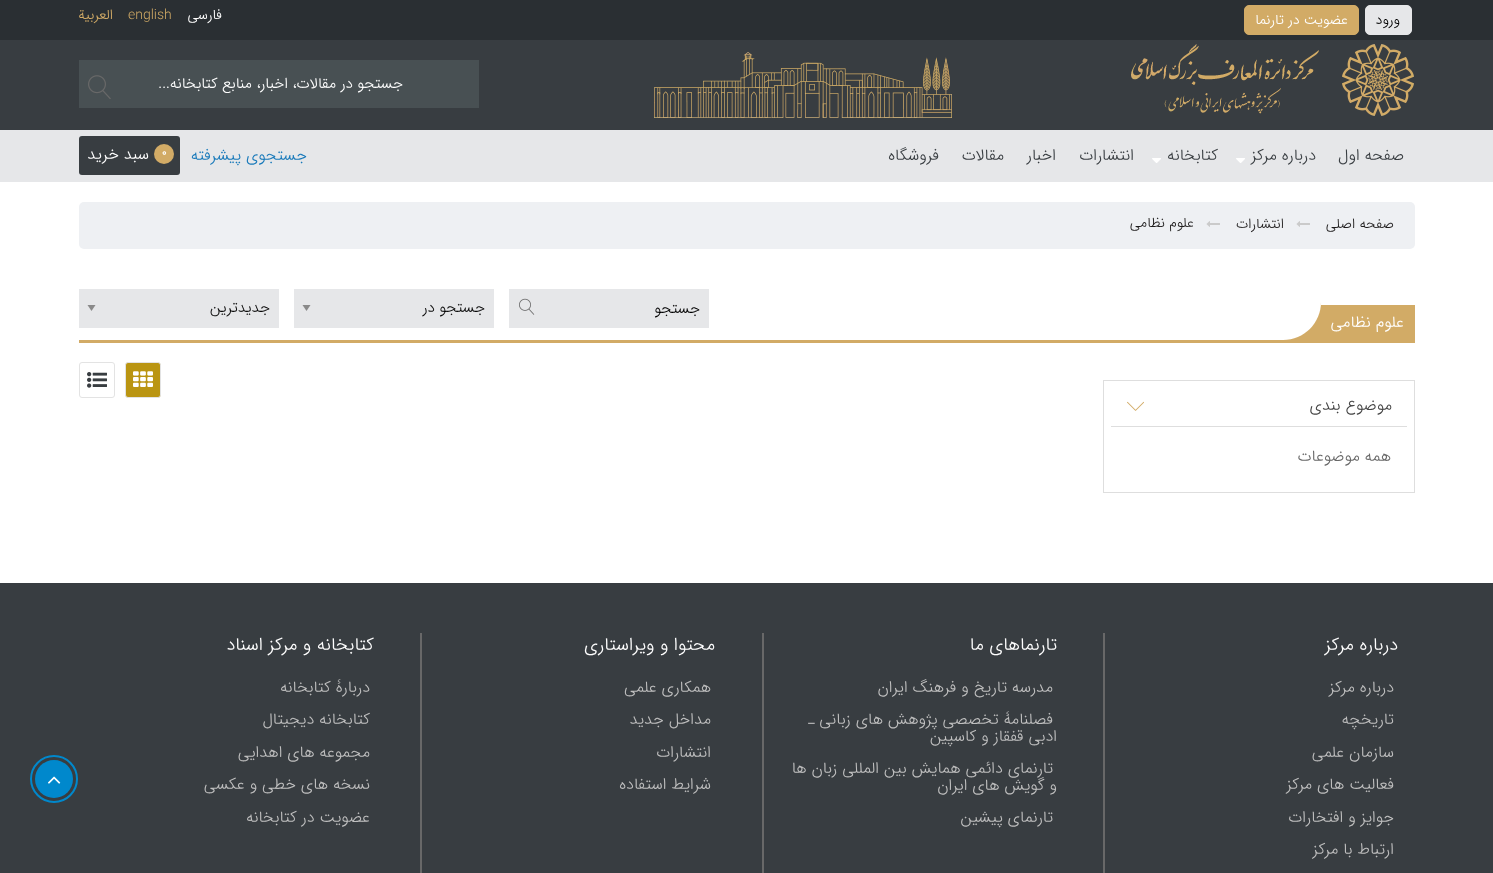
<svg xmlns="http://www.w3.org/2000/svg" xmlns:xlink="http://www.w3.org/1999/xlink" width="1493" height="873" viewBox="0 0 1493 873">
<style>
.cls-1{font:300 14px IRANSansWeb;direction:rtl;fill:#000000}
.cls-2{font:300 14px IRANSansWeb;direction:rtl;fill:#ffffff}
.cls-3{font:300 14px IRANSansWeb;fill:#d2ab66}
.cls-4{font:300 14px IRANSansWeb;direction:rtl;fill:#d2ab66}
.cls-5{font:300 15px IRANSansWeb;direction:rtl;fill:#ffffff}
.cls-6{font:300 16px IRANSansWeb;direction:rtl;fill:#383d41}
.cls-7{font:300 16px IRANSansWeb;direction:rtl;fill:#1779ba}
.cls-8{font:500 10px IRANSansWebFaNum;fill:#ffffff}
.cls-9{font:300 16px IRANSansWeb;direction:rtl;fill:#ffffff}
.cls-10{font:300 14px IRANSansWeb;direction:rtl;fill:#1f1d1d}
.cls-11{font:300 15px IRANSansWeb;direction:rtl;fill:#000000}
.cls-12{font:300 15px IRANSansWeb;direction:rtl;fill:#0a0a0a}
.cls-13{font:300 16px IRANSansWeb;direction:rtl;fill:#444444}
.cls-14{font:300 16px IRANSansWeb;direction:rtl;fill:#686868}
.cls-15{font:300 18px IRANSansWeb;direction:rtl;fill:#ffffff}
.cls-16{font:300 16px IRANSansWeb;direction:rtl;fill:#bfbfbf}
</style>
<rect width="100%" height="100%" fill="#ffffff"/>
<rect fill="#2a2f33" x="0" y="0" width="1493" height="40"/>
<rect fill="#e6e7e9" stroke="#e6e7e9" x="1365.5" y="5.5" width="46" height="29" rx="4.5"/>
<rect fill="#d2ab66" stroke="#d2ab66" x="1244.5" y="5.5" width="114" height="29" rx="4.5"/>
<rect fill="#383d41" x="0" y="40" width="1493" height="90"/>
<image xlink:href="image0.png" x="1131" y="44" width="283" height="72"/>
<image xlink:href="image1.png" x="654" y="52" width="298" height="66"/>
<rect fill="#485053" x="79" y="60" width="400" height="48"/>
<image xlink:href="image2.png" x="88" y="75" width="23" height="24"/>
<rect fill="#e6e7e9" x="0" y="130" width="1493" height="52"/>
<image xlink:href="image3.png" x="1236" y="158" width="9" height="5"/>
<image xlink:href="image3.png" x="1152" y="158" width="9" height="5"/>
<rect fill="#383d41" x="79" y="136" width="101" height="39" rx="3"/>
<circle fill="#d2ab66" cx="164" cy="154" r="10"/>
<rect fill="#eef0f3" x="79" y="202" width="1336" height="47" rx="5"/>
<image xlink:href="image4.png" x="1296" y="221" width="14" height="6"/>
<image xlink:href="image4.png" x="1206" y="221" width="14" height="6"/>
<rect fill="#d2ab66" x="1321" y="305" width="94" height="35"/>
<rect fill="#d2ab66" x="1283" y="302" width="38" height="38"/>
<path fill="#ffffff" d="M1283 302H1321C1321 323 1304 340 1283 340Z"/>
<rect fill="#e6e7e9" x="509" y="289" width="200" height="39"/>
<image xlink:href="image5.png" x="519" y="298" width="16" height="17"/>
<rect fill="#e6e7e9" x="294" y="289" width="200" height="39"/>
<path fill="#8a8a8a" d="M302.5 305H310.5L306.5 311Z"/>
<rect fill="#e6e7e9" x="79" y="289" width="200" height="39"/>
<path fill="#8a8a8a" d="M87.5 305H95.5L91.5 311Z"/>
<rect fill="#d2ab66" x="79" y="340" width="1336" height="3"/>
<rect fill="#ba9512" stroke="#e3e3e3" x="125.5" y="362.5" width="35" height="35" rx="2.5"/>
<image xlink:href="image6.png" x="133" y="371" width="20" height="16"/>
<rect fill="none" stroke="#e3e3e3" x="79.5" y="362.5" width="35" height="35" rx="2.5"/>
<image xlink:href="image7.png" x="87" y="372" width="20" height="16"/>
<rect fill="none" stroke="#dedede" x="1103.5" y="380.5" width="311" height="112"/>
<rect fill="#dedede" x="1111" y="426" width="296" height="1"/>
<image xlink:href="image8.png" x="1127" y="401" width="17" height="10"/>
<rect fill="#383d41" x="0" y="583" width="1493" height="290"/>
<rect fill="#686868" x="1103" y="633" width="2" height="240"/>
<rect fill="#686868" x="762" y="633" width="2" height="240"/>
<rect fill="#686868" x="420" y="633" width="2" height="240"/>
<circle fill="none" stroke="#0088cc" stroke-width="2" cx="54" cy="779" r="23"/>
<circle fill="#0088cc" cx="54" cy="779" r="19"/>
<image xlink:href="image9.png" x="48" y="776" width="13" height="8"/>
<text class="cls-1" x="1400" y="24">ورود</text>
<text class="cls-2" x="1348" y="24">عضویت در تارنما</text>
<text class="cls-2" x="222" y="19">فارسی</text>
<text class="cls-3" x="128" y="19">english</text>
<text class="cls-4" x="113" y="19">العربیة</text>
<text class="cls-5" x="403" y="88">جستجو در مقالات، اخبار، منابع کتابخانه...</text>
<text class="cls-6" x="1404" y="160">صفحه اول</text>
<text class="cls-6" x="1316" y="160">درباره مرکز</text>
<text class="cls-6" x="1218" y="160">کتابخانه</text>
<text class="cls-6" x="1134" y="160">انتشارات</text>
<text class="cls-6" x="1056" y="160">اخبار</text>
<text class="cls-6" x="1004" y="160">مقالات</text>
<text class="cls-6" x="939" y="160">فروشگاه</text>
<text class="cls-7" x="307" y="160">جستجوی پیشرفته</text>
<text class="cls-8" x="162" y="155">0</text>
<text class="cls-9" x="149" y="159">سبد خرید</text>
<text class="cls-10" x="1394" y="228">صفحه اصلی</text>
<text class="cls-10" x="1284" y="228">انتشارات</text>
<text class="cls-10" x="1194" y="227">علوم نظامی</text>
<text class="cls-9" x="1404" y="327">علوم نظامی</text>
<text class="cls-11" x="700" y="313">جستجو</text>
<text class="cls-12" x="485" y="312">جستجو در</text>
<text class="cls-12" x="270" y="312">جدیدترین</text>
<text class="cls-13" x="1392" y="410">موضوع بندی</text>
<text class="cls-14" x="1391" y="461">همه موضوعات</text>
<text class="cls-15" x="1398" y="650">درباره مرکز</text>
<text class="cls-16" x="1394" y="692">درباره مرکز</text>
<text class="cls-16" x="1394" y="724">تاریخچه</text>
<text class="cls-16" x="1394" y="757">سازمان علمی</text>
<text class="cls-16" x="1394" y="789">فعالیت های مرکز</text>
<text class="cls-16" x="1394" y="822">جوایز و افتخارات</text>
<text class="cls-16" x="1394" y="854">ارتباط با مرکز</text>
<text class="cls-15" x="1057" y="650">تارنماهای ما</text>
<text class="cls-16" x="1053" y="692">مدرسه تاریخ و فرهنگ ایران</text>
<text class="cls-16" x="1053" y="724">فصلنامۀ تخصصی پژوهش های زبانی ـ</text>
<text class="cls-16" x="1057" y="741">ادبی قفقاز و کاسپین</text>
<text class="cls-16" x="1053" y="773">تارنمای دائمی همایش بین المللی زبان ها</text>
<text class="cls-16" x="1057" y="790">و گویش های ایران</text>
<text class="cls-16" x="1053" y="822">تارنماى پيشين</text>
<text class="cls-15" x="715" y="650">محتوا و ویراستاری</text>
<text class="cls-16" x="711" y="692">همکاری علمی</text>
<text class="cls-16" x="711" y="724">مداخل جدید</text>
<text class="cls-16" x="711" y="757">انتشارات</text>
<text class="cls-16" x="711" y="789">شرایط استفاده</text>
<text class="cls-15" x="374" y="650">کتابخانه و مرکز اسناد</text>
<text class="cls-16" x="370" y="692">دربارۀ کتابخانه</text>
<text class="cls-16" x="370" y="724">کتابخانه دیجیتال</text>
<text class="cls-16" x="370" y="757">مجموعه های اهدایی</text>
<text class="cls-16" x="370" y="789">نسخه های خطی و عکسی</text>
<text class="cls-16" x="370" y="822">عضویت در کتابخانه</text>
</svg>
